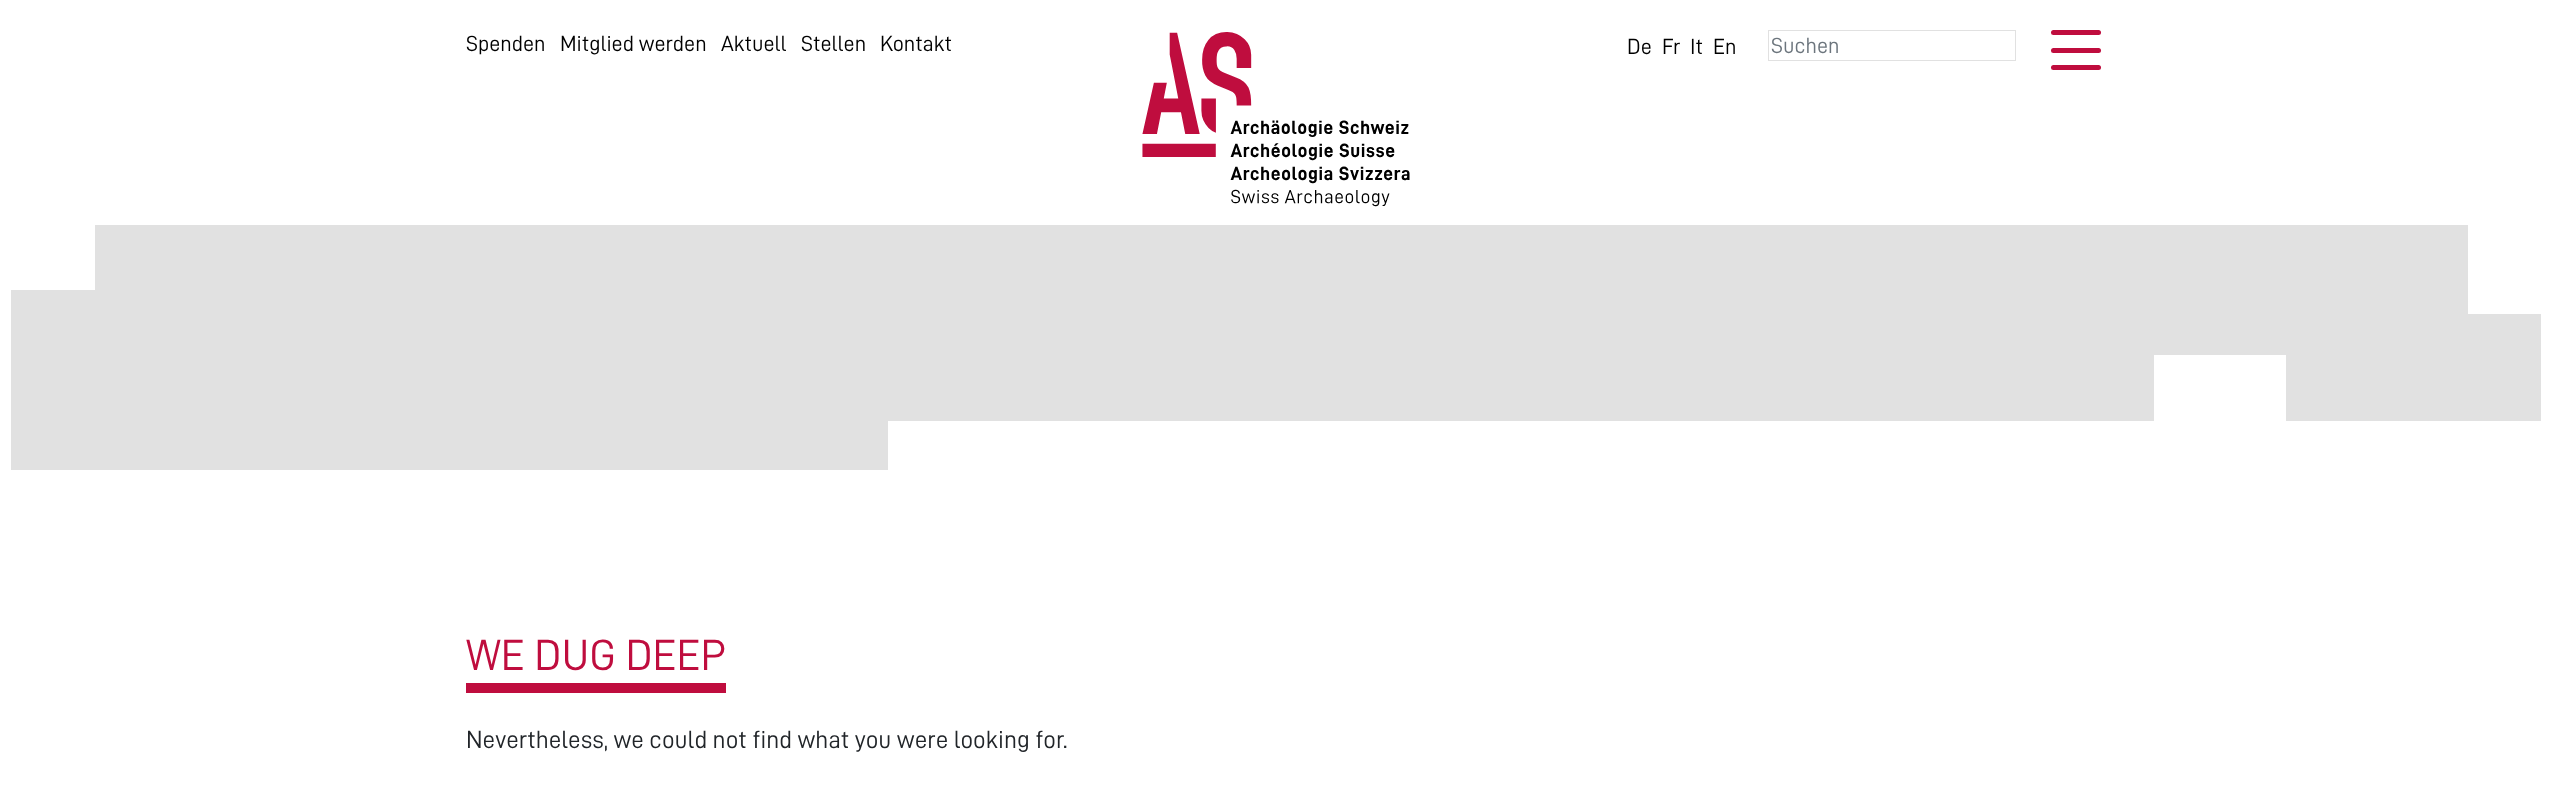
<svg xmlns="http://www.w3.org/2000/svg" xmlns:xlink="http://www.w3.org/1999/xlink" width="2552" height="803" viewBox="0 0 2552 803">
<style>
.cls-1{font:22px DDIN;fill:#000000}
.cls-2{font:22px DDIN;fill:#6c757d}
.cls-3{font:43.75px DDIN;fill:#bf0d3e}
.cls-4{font:25px DDIN;fill:#212529}
</style>
<defs>
<clipPath id="clip1"><rect x="0" y="225" width="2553" height="245"/></clipPath>
</defs>
<rect width="100%" height="100%" fill="#ffffff"/>
<image xlink:href="image0.png" x="1142" y="32" width="268" height="175"/>
<rect fill="none" stroke="#e1e1e1" x="1768.5" y="30.5" width="247" height="30"/>
<rect fill="#bf0d3e" x="2051" y="65" width="50" height="5" rx="2.5"/>
<rect fill="#bf0d3e" x="2051" y="30" width="50" height="5" rx="2.5"/>
<rect fill="#bf0d3e" x="2051" y="48" width="50" height="5" rx="2.5"/>
<g clip-path="url(#clip1)">
<path fill="#e1e1e1" d="M95 216V290H11V480H888V421H2154V355H2286V421H2541V314H2468V216Z"/>
</g>
<rect fill="#bf0d3e" x="466" y="683" width="260" height="10"/>
<text class="cls-1" x="466" y="51">Spenden</text>
<text class="cls-1" x="560" y="51">Mitglied werden</text>
<text class="cls-1" x="721" y="51">Aktuell</text>
<text class="cls-1" x="801" y="51">Stellen</text>
<text class="cls-1" x="880" y="51">Kontakt</text>
<text class="cls-1" x="1627" y="54">De</text>
<text class="cls-1" x="1662" y="54">Fr</text>
<text class="cls-1" x="1690" y="54">It</text>
<text class="cls-1" x="1713" y="54">En</text>
<text class="cls-2" x="1771" y="53">Suchen</text>
<text class="cls-3" x="466" y="670">WE DUG DEEP</text>
<text class="cls-4" x="466" y="748">Nevertheless, we could not find what you were looking for.</text>
</svg>
